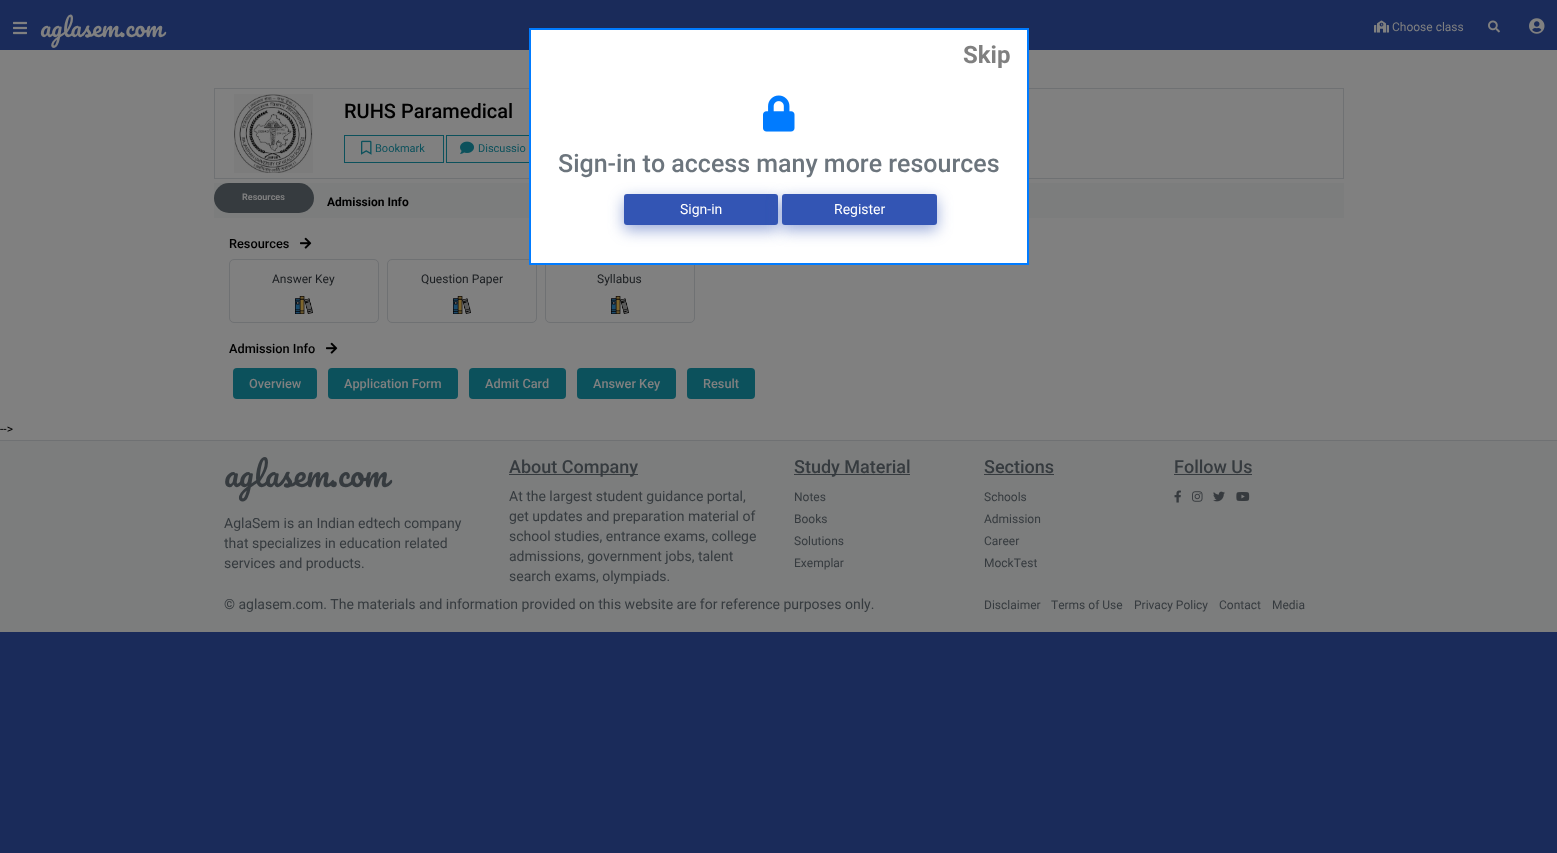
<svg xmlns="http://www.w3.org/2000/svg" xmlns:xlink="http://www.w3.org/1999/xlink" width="1557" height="853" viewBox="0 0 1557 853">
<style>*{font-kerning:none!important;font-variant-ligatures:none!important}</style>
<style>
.cls-1{font:24px Pacifico;fill:#808080}
.cls-2{font:12px Roboto;fill:#808080}
.cls-3{font:500 20px Roboto;fill:#000000}
.cls-4{font:11px Roboto;fill:#0c515c}
.cls-5{font:bold 24px Roboto;fill:#808080}
.cls-6{font:500 25px Roboto;fill:#6c757d}
.cls-7{font:14px Roboto;fill:#ffffff}
.cls-8{font:bold 9px Roboto;fill:#808080}
.cls-9{font:bold 12px Roboto;fill:#000000}
.cls-10{font:500 12.75px Roboto;fill:#000000}
.cls-11{font:12px Roboto;fill:#1a1d20}
.cls-12{font:500 12.75px Roboto;fill:#808080}
.cls-13{font:12px Roboto;fill:#000000}
.cls-14{font:32px Pacifico;fill:#363b3f}
.cls-15{font:14px Roboto;fill:#363b3f}
.cls-16{font:500 18px Roboto;fill:#363b3f}
.cls-17{font:12px Roboto;fill:#363b3f}
</style>
<rect width="100%" height="100%" fill="#1a2b5a"/>
<rect fill="#808080" x="0" y="50" width="1557" height="390"/>
<image xlink:href="image0.png" x="13" y="21" width="14" height="14"/>
<image xlink:href="image1.png" x="1374" y="20" width="15" height="13"/>
<image xlink:href="image2.png" x="1488" y="20" width="12" height="13"/>
<image xlink:href="image3.png" x="1529" y="18" width="16" height="16"/>
<rect fill="none" stroke="#6f7173" x="214.5" y="88.5" width="1129" height="90"/>
<image xlink:href="image4.png" x="234" y="94" width="79" height="79"/>
<rect fill="none" stroke="#0c515c" x="344.5" y="135.5" width="99" height="27"/>
<image xlink:href="image5.png" x="361" y="140" width="11" height="15"/>
<rect fill="none" stroke="#0c515c" x="446.5" y="135.5" width="99" height="27"/>
<image xlink:href="image6.png" x="460" y="141" width="14" height="13"/>
<rect fill="#7c7d7d" x="214" y="183" width="1130" height="35"/>
<rect fill="none" stroke="#6f7173" x="387.5" y="259.5" width="149" height="63" rx="4.5"/>
<rect fill="none" stroke="#6f7173" x="545.5" y="259.5" width="149" height="63" rx="4.5"/>
<rect fill="none" stroke="#007bff" x="529.5" y="28.5" width="499" height="236"/>
<rect fill="#ffffff" stroke="#007bff" x="530.5" y="29.5" width="497" height="234"/>
<image xlink:href="image7.png" x="763" y="95" width="32" height="37"/>
<rect fill="#3355b4" fill-opacity="0.5" filter="blur(7.5px)" x="624" y="199" width="154" height="31" rx="3"/>
<rect fill="#3355b4" x="624" y="194" width="154" height="31" rx="3"/>
<rect fill="#3355b4" fill-opacity="0.5" filter="blur(7.5px)" x="782" y="199" width="155" height="31" rx="3"/>
<rect fill="#3355b4" x="782" y="194" width="155" height="31" rx="3"/>
<rect fill="#363b3f" x="214" y="183" width="100" height="30" rx="15"/>
<image xlink:href="image8.png" x="300" y="237" width="12" height="12"/>
<rect fill="none" stroke="#6f7173" x="229.5" y="259.5" width="149" height="63" rx="4.5"/>
<image xlink:href="image9.png" x="295" y="296" width="18" height="18"/>
<image xlink:href="image9.png" x="453" y="296" width="18" height="18"/>
<image xlink:href="image9.png" x="611" y="296" width="18" height="18"/>
<image xlink:href="image8.png" x="326" y="342" width="12" height="12"/>
<rect fill="#0c515c" x="233" y="368" width="84" height="31" rx="4"/>
<rect fill="#0c515c" x="328" y="368" width="130" height="31" rx="4"/>
<rect fill="#0c515c" x="469" y="368" width="97" height="31" rx="4"/>
<rect fill="#0c515c" x="577" y="368" width="99" height="31" rx="4"/>
<rect fill="#0c515c" x="687" y="368" width="68" height="31" rx="4"/>
<rect fill="#7c7d7d" x="0" y="441" width="1557" height="191"/>
<rect fill="#6f7173" x="0" y="440" width="1557" height="1"/>
<rect fill="#363b3f" x="509" y="474" width="129" height="1"/>
<rect fill="#363b3f" x="794" y="474" width="116" height="1"/>
<rect fill="#363b3f" x="984" y="474" width="70" height="1"/>
<rect fill="#363b3f" x="1174" y="474" width="78" height="1"/>
<image xlink:href="image10.png" x="1174" y="490" width="7" height="13"/>
<image xlink:href="image11.png" x="1192" y="491" width="11" height="11"/>
<image xlink:href="image12.png" x="1213" y="491" width="12" height="11"/>
<image xlink:href="image13.png" x="1236" y="492" width="14" height="9"/>
<text class="cls-1" x="40" y="37">aglasem.com</text>
<text class="cls-2" x="1392" y="31">Choose class</text>
<text class="cls-3" x="344" y="118">RUHS Paramedical</text>
<text class="cls-4" x="375" y="152">Bookmark</text>
<text class="cls-4" x="478" y="152">Discussio</text>
<text class="cls-5" x="963" y="63">Skip</text>
<text class="cls-6" x="558" y="172">Sign-in to access many more resources</text>
<text class="cls-7" x="680" y="214">Sign-in</text>
<text class="cls-7" x="834" y="214">Register</text>
<text class="cls-8" x="242" y="200">Resources</text>
<text class="cls-9" x="327" y="206">Admission Info</text>
<text class="cls-10" x="229" y="248">Resources</text>
<text class="cls-11" x="272" y="283">Answer Key</text>
<text class="cls-11" x="421" y="283">Question Paper</text>
<text class="cls-11" x="597" y="283">Syllabus</text>
<text class="cls-10" x="229" y="353">Admission Info</text>
<text class="cls-12" x="249" y="388">Overview</text>
<text class="cls-12" x="344" y="388">Application Form</text>
<text class="cls-12" x="485" y="388">Admit Card</text>
<text class="cls-12" x="593" y="388">Answer Key</text>
<text class="cls-12" x="703" y="388">Result</text>
<text class="cls-13" x="0" y="433">--&gt;</text>
<text class="cls-14" x="224" y="487">aglasem.com</text>
<text class="cls-15"><tspan x="224" y="528">AglaSem is an Indian edtech company</tspan><tspan x="224" y="548">that specializes in education related</tspan><tspan x="224" y="568">services and products.</tspan></text>
<text class="cls-16" x="509" y="473">About Company</text>
<text class="cls-15"><tspan x="509" y="501">At the largest student guidance portal,</tspan><tspan x="509" y="521">get updates and preparation material of</tspan><tspan x="509" y="541">school studies, entrance exams, college</tspan><tspan x="509" y="561">admissions, government jobs, talent</tspan><tspan x="509" y="581">search exams, olympiads.</tspan></text>
<text class="cls-16" x="794" y="473">Study Material</text>
<text class="cls-17"><tspan x="794" y="501">Notes</tspan><tspan x="794" y="523">Books</tspan><tspan x="794" y="545">Solutions</tspan><tspan x="794" y="567">Exemplar</tspan></text>
<text class="cls-16" x="984" y="473">Sections</text>
<text class="cls-17"><tspan x="984" y="501">Schools</tspan><tspan x="984" y="523">Admission</tspan><tspan x="984" y="545">Career</tspan><tspan x="984" y="567">MockTest</tspan></text>
<text class="cls-16" x="1174" y="473">Follow Us</text>
<text class="cls-15" x="224" y="609">© aglasem.com. The materials and information provided on this website are for reference purposes only.</text>
<text class="cls-17" x="984" y="609">Disclaimer</text>
<text class="cls-17" x="1051" y="609">Terms of Use</text>
<text class="cls-17" x="1134" y="609">Privacy Policy</text>
<text class="cls-17" x="1219" y="609">Contact</text>
<text class="cls-17" x="1272" y="609">Media</text>
</svg>
